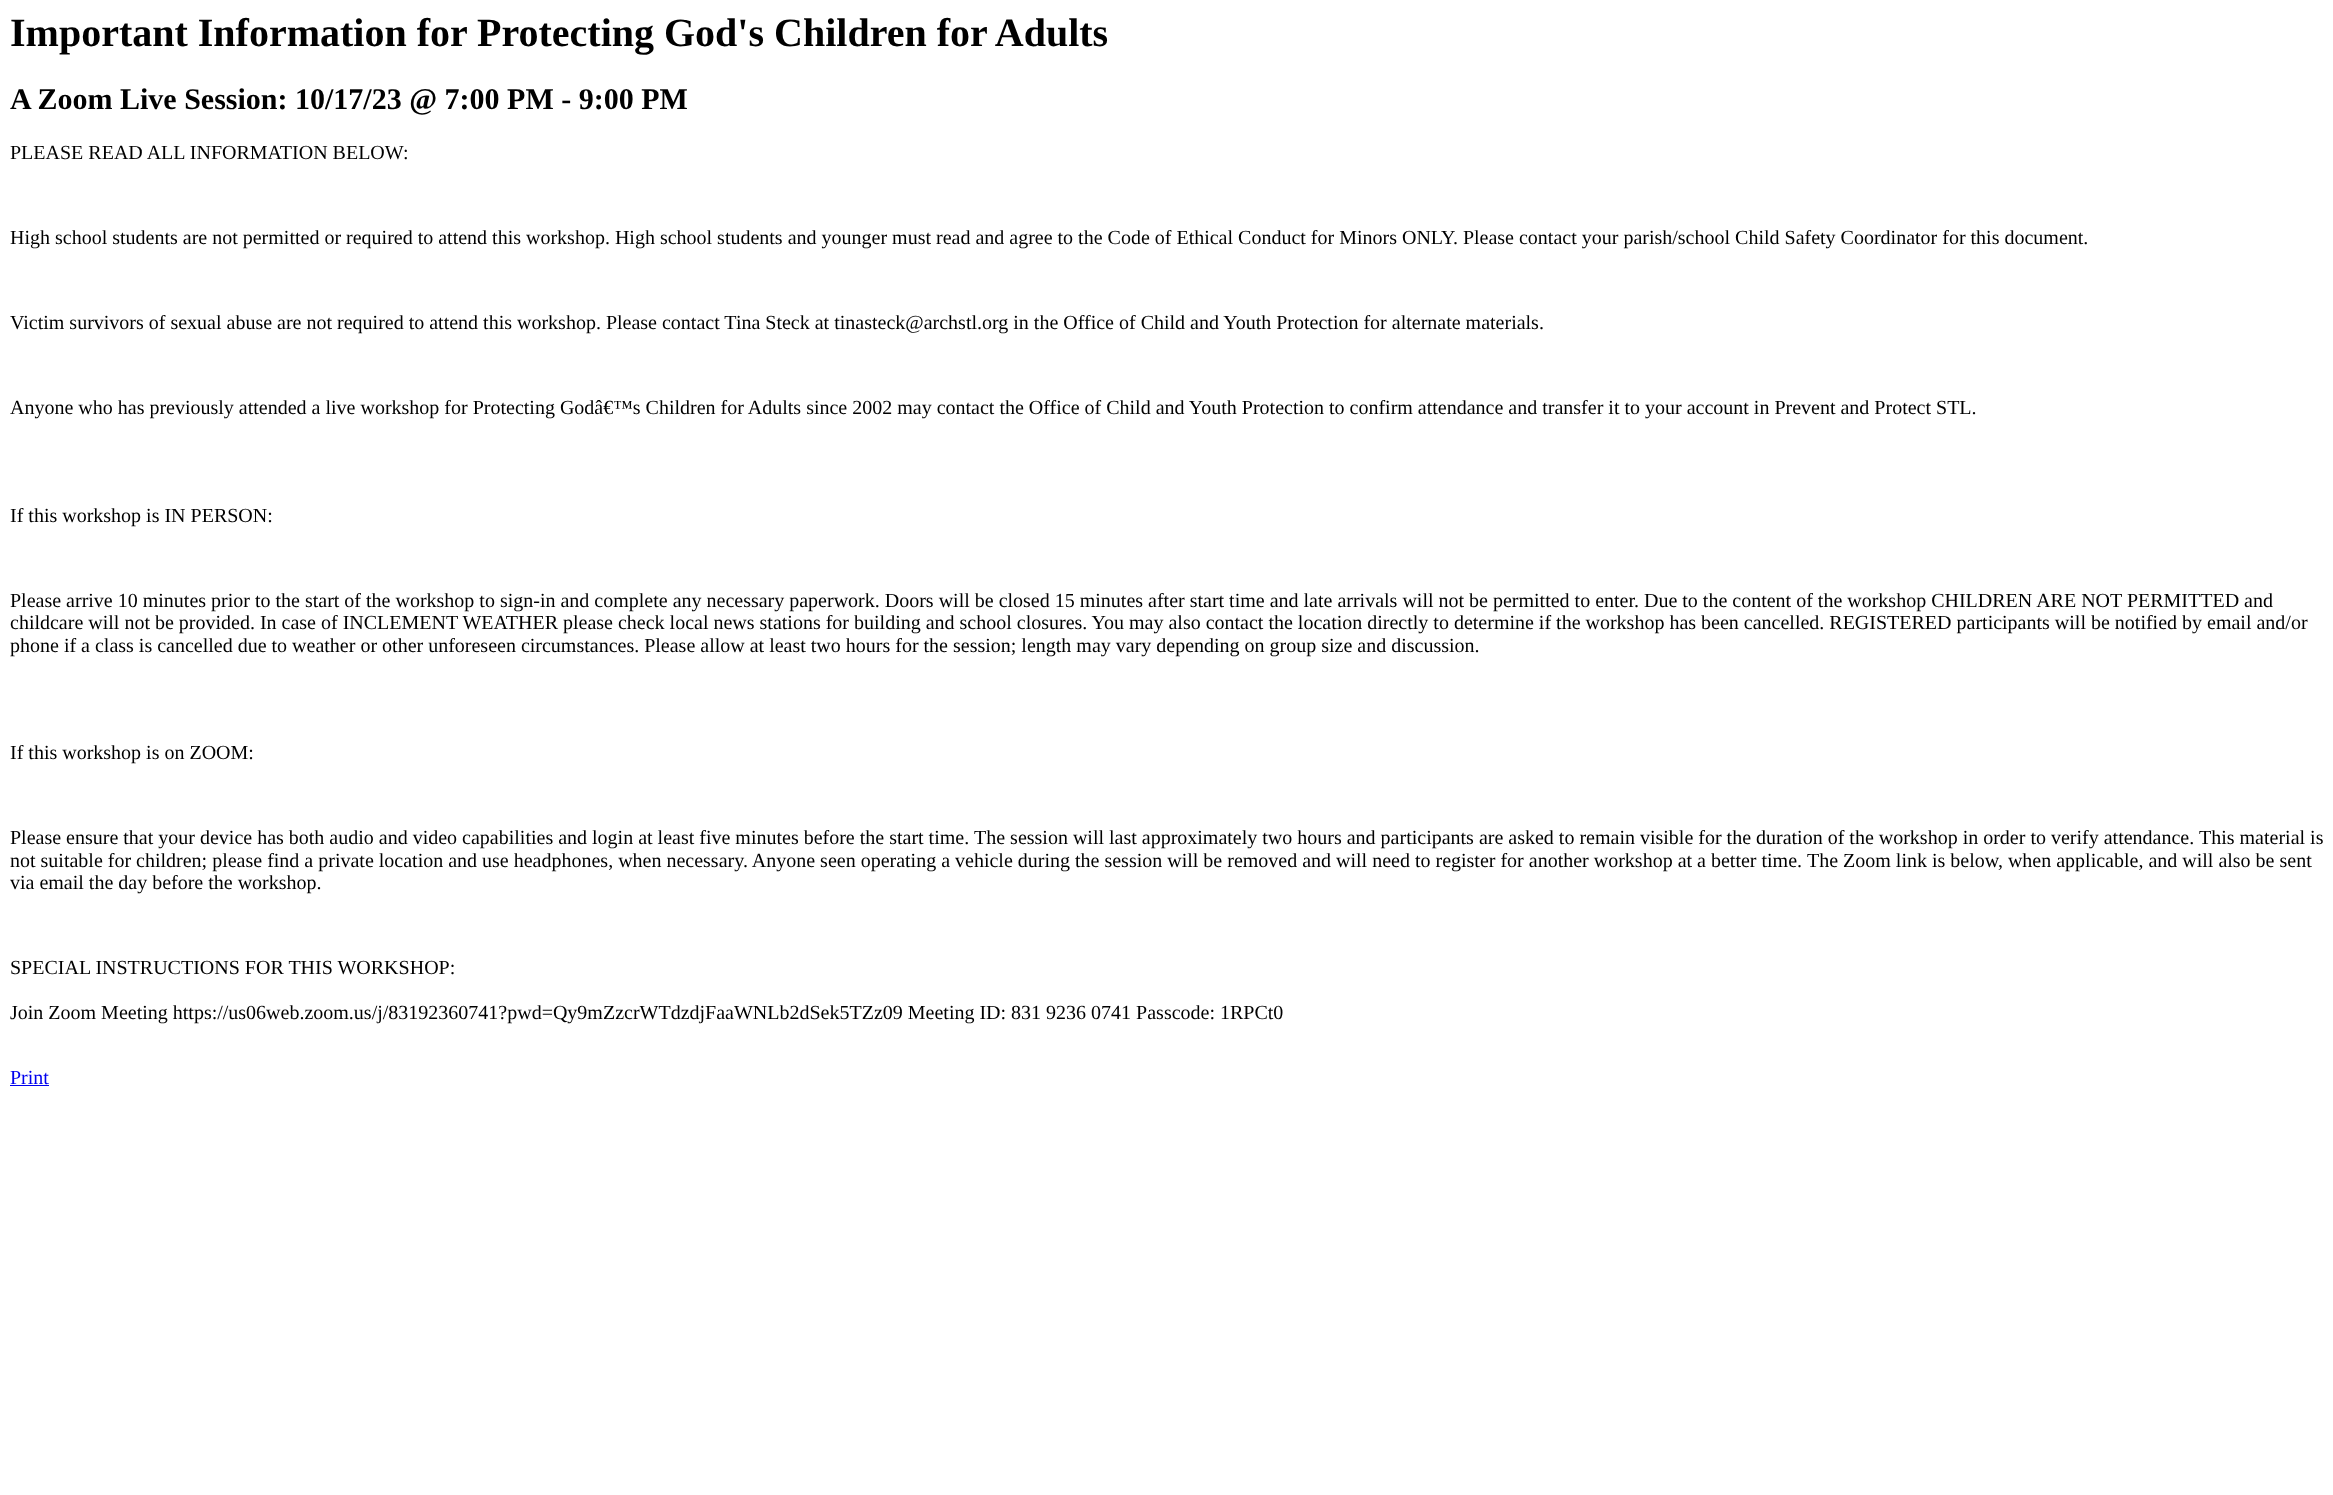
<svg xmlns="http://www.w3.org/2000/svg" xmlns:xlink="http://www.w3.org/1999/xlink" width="2333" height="1495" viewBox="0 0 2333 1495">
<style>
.cls-1{font:bold 40px Liberation Serif;fill:#000000}
.cls-2{font:bold 30px Liberation Serif;fill:#000000}
.cls-3{font:20px Liberation Serif;fill:#000000}
.cls-4{font:20px Liberation Serif;fill:#0000ee}
</style>
<rect width="100%" height="100%" fill="#ffffff"/>
<rect fill="#0000ee" x="10" y="1085" width="39" height="1"/>
<text class="cls-1" x="10" y="46">Important Information for Protecting God's Children for Adults</text>
<text class="cls-2" x="10" y="109">A Zoom Live Session: 10/17/23 @ 7:00 PM - 9:00 PM</text>
<text class="cls-3" x="10" y="159">PLEASE READ ALL INFORMATION BELOW:</text>
<text class="cls-3" x="10" y="244">High school students are not permitted or required to attend this workshop. High school students and younger must read and agree to the Code of Ethical Conduct for Minors ONLY. Please contact your parish/school Child Safety Coordinator for this document.</text>
<text class="cls-3" x="10" y="329">Victim survivors of sexual abuse are not required to attend this workshop. Please contact Tina Steck at tinasteck@archstl.org in the Office of Child and Youth Protection for alternate materials.</text>
<text class="cls-3" x="10" y="414">Anyone who has previously attended a live workshop for Protecting Godâ€™s Children for Adults since 2002 may contact the Office of Child and Youth Protection to confirm attendance and transfer it to your account in Prevent and Protect STL.</text>
<text class="cls-3" x="10" y="522">If this workshop is IN PERSON:</text>
<text class="cls-3"><tspan x="10" y="607">Please arrive 10 minutes prior to the start of the workshop to sign-in and complete any necessary paperwork. Doors will be closed 15 minutes after start time and late arrivals will not be permitted to enter. Due to the content of the workshop CHILDREN ARE NOT PERMITTED and</tspan><tspan x="10" y="629">childcare will not be provided. In case of INCLEMENT WEATHER please check local news stations for building and school closures. You may also contact the location directly to determine if the workshop has been cancelled. REGISTERED participants will be notified by email and/or</tspan><tspan x="10" y="652">phone if a class is cancelled due to weather or other unforeseen circumstances. Please allow at least two hours for the session; length may vary depending on group size and discussion.</tspan></text>
<text class="cls-3" x="10" y="759">If this workshop is on ZOOM:</text>
<text class="cls-3" x="10" y="844">Please ensure that your device has both audio and video capabilities and login at least five minutes before the start time.</text>
<text class="cls-3" x="974" y="844">The session will last approximately two hours and participants are asked to remain visible for the duration of the workshop in order to verify attendance.</text>
<text class="cls-3" x="2199" y="844">This material is</text>
<text class="cls-3" x="10" y="867">not suitable for children; please find a private location and use headphones, when necessary. Anyone seen operating a vehicle during the session will be removed and will need to register for another workshop at a better time.</text>
<text class="cls-3" x="1807" y="867">The Zoom link is below, when applicable, and will also be sent</text>
<text class="cls-3" x="10" y="889">via email the day before the workshop.</text>
<text class="cls-3" x="10" y="974">SPECIAL INSTRUCTIONS FOR THIS WORKSHOP:</text>
<text class="cls-3" x="10" y="1019">Join Zoom Meeting https://us06web.zoom.us/j/83192360741?pwd=Qy9mZzcrWTdzdjFaaWNLb2dSek5TZz09 Meeting ID: 831 9236 0741 Passcode: 1RPCt0</text>
<text class="cls-4" x="10" y="1084">Print</text>
</svg>
